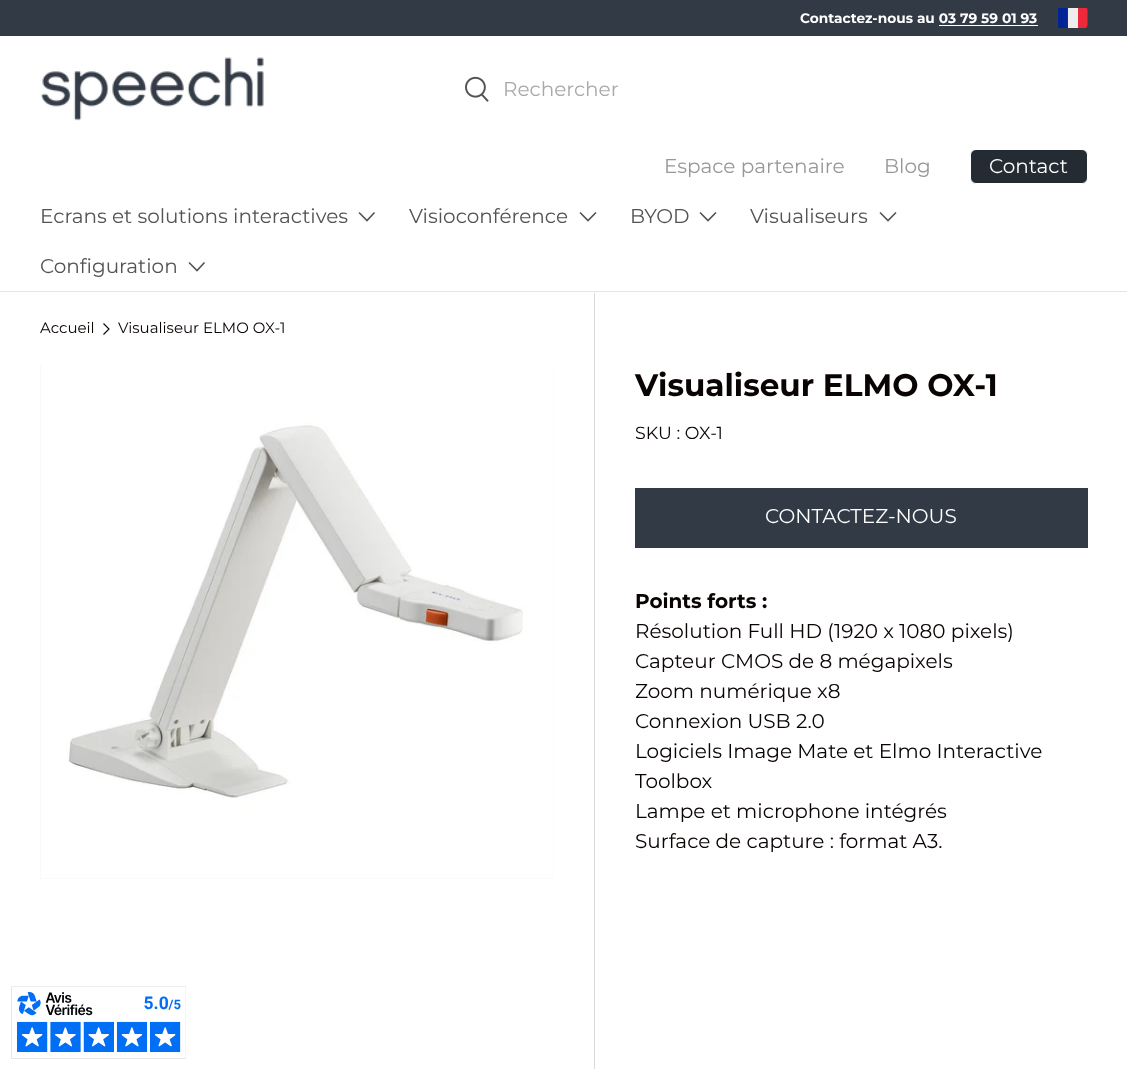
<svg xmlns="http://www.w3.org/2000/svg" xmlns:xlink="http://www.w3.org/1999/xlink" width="1127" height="1069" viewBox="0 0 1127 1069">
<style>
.cls-1{font:bold 13.75px Montserrat;fill:#ffffff}
.cls-2{font:20px Montserrat;fill:#a9a9a9}
.cls-3{font:20px Montserrat;fill:#989898}
.cls-4{font:20px Montserrat;fill:#ffffff}
.cls-5{font:20px Montserrat;fill:#535353}
.cls-6{font:15px Montserrat;fill:#090302}
.cls-7{font:bold 31.1px Montserrat;fill:#090302}
.cls-8{font:17.5px Montserrat;fill:#090302}
.cls-9{font:bold 20px Montserrat;fill:#090302}
.cls-10{font:20px Montserrat;fill:#090302}
</style>
<rect width="100%" height="100%" fill="#ffffff"/>
<rect fill="#323a45" x="0" y="0" width="1127" height="36"/>
<rect fill="#ffffff" x="939" y="25" width="99" height="1"/>
<image xlink:href="image0.png" x="1058" y="8" width="30" height="20"/>
<rect fill="#e5e5e5" x="0" y="291" width="1127" height="1"/>
<image xlink:href="image1.png" x="41" y="57" width="223" height="64"/>
<image xlink:href="image2.png" x="465" y="76" width="24" height="26"/>
<rect fill="#242b33" stroke="#ffffff" x="970.5" y="149.5" width="117" height="34" rx="5.5"/>
<path fill="none" stroke="#535353" stroke-width="1.6" d="M374.5 212.5L367 220.5L359 212.5"/>
<path fill="none" stroke="#535353" stroke-width="1.6" d="M596 212.5L588 220.5L580 212.5"/>
<path fill="none" stroke="#535353" stroke-width="1.6" d="M716 212.5L708 220.5L700 212.5"/>
<path fill="none" stroke="#535353" stroke-width="1.6" d="M896 212.5L888 220.5L880 212.5"/>
<path fill="none" stroke="#535353" stroke-width="1.6" d="M204.5 262.5L197 270.5L189 262.5"/>
<path fill="none" stroke="#090302" stroke-width="1.1" d="M103.5 323.5L109 329L103.5 334.5"/>
<rect fill="#f4f4f4" x="40" y="365" width="514" height="514"/>
<image xlink:href="image3.png" x="40" y="365" width="514" height="514"/>
<rect fill="#dad9d9" x="594" y="293" width="1" height="776"/>
<rect fill="#323a45" x="635" y="488" width="453" height="60"/>
<image xlink:href="image4.png" x="11" y="986" width="175" height="73"/>
<text class="cls-1" x="800" y="23">Contactez-nous au 03 79 59 01 93</text>
<text class="cls-2" x="503" y="96">Rechercher</text>
<text class="cls-3" x="664" y="173">Espace partenaire</text>
<text class="cls-3" x="884" y="173">Blog</text>
<text class="cls-4" x="989" y="173">Contact</text>
<text class="cls-5" x="40" y="223">Ecrans et solutions interactives</text>
<text class="cls-5" x="409" y="223">Visioconférence</text>
<text class="cls-5" x="630" y="223">BYOD</text>
<text class="cls-5" x="750" y="223">Visualiseurs</text>
<text class="cls-5" x="40" y="273">Configuration</text>
<text class="cls-6" x="40" y="333">Accueil</text>
<text class="cls-6" x="118" y="333">Visualiseur ELMO OX-1</text>
<text class="cls-7" x="635" y="396">Visualiseur ELMO OX-1</text>
<text class="cls-8" x="635" y="439">SKU : OX-1</text>
<text class="cls-4" x="765" y="523">CONTACTEZ-NOUS</text>
<text class="cls-9" x="635" y="608">Points forts :</text>
<text class="cls-10"><tspan x="635" y="638">Résolution Full HD (1920 x 1080 pixels)</tspan><tspan x="635" y="668">Capteur CMOS de 8 mégapixels</tspan><tspan x="635" y="698">Zoom numérique x8</tspan><tspan x="635" y="728">Connexion USB 2.0</tspan><tspan x="635" y="758">Logiciels Image Mate et Elmo Interactive</tspan><tspan x="635" y="788">Toolbox</tspan><tspan x="635" y="818">Lampe et microphone intégrés</tspan><tspan x="635" y="848">Surface de capture : format A3.</tspan></text>
</svg>
